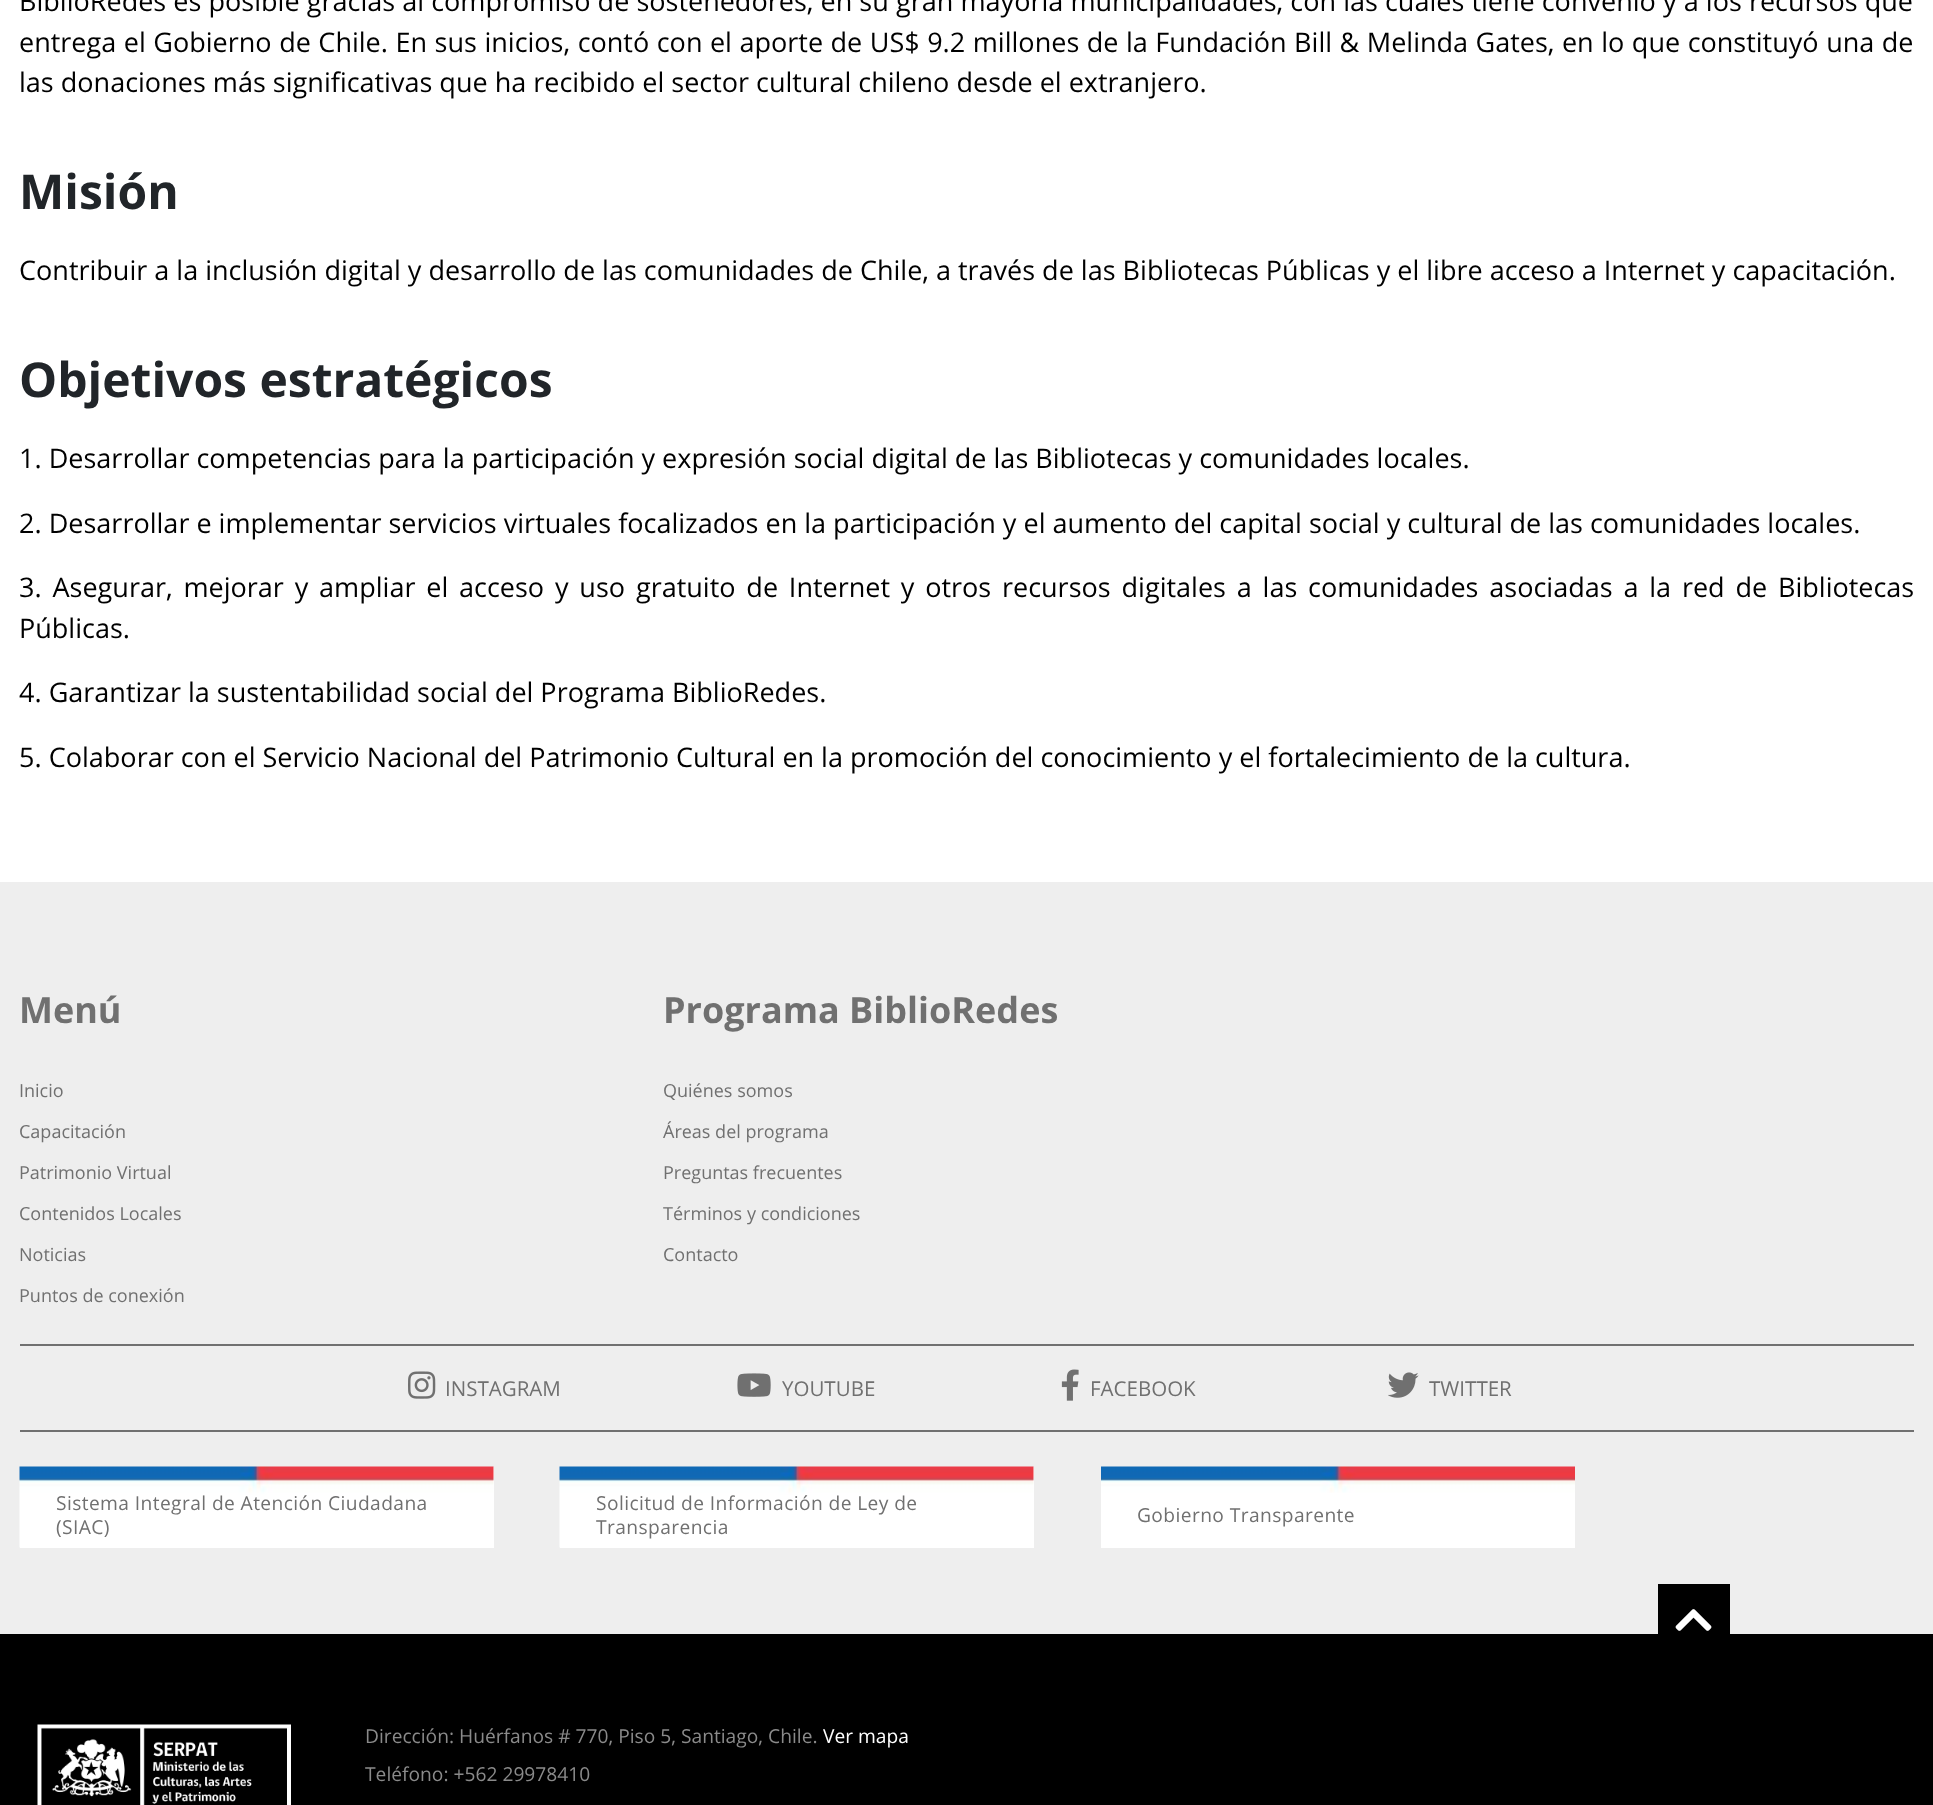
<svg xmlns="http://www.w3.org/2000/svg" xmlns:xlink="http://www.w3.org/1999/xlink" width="1933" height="1805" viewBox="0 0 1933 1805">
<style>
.cls-1{font:27px Open Sans;fill:#000000}
.cls-2{font:bold 48px Open Sans;fill:#212529}
.cls-3{font:bold 36px Open Sans;fill:#707070}
.cls-4{font:18px Open Sans;fill:#707070}
.cls-5{font:20.5px Open Sans;fill:#707070}
.cls-6{font:19.2px Open Sans;letter-spacing:0.4px;fill:#707070}
.cls-7{font:19.2px Open Sans;fill:#8a8a8a}
.cls-8{font:19.2px Open Sans;fill:#ffffff}
</style>
<rect width="100%" height="100%" fill="#ffffff"/>
<rect fill="#eeeeee" x="0" y="882" width="1933" height="752"/>
<rect fill="#707070" x="20" y="1344" width="1894" height="2"/>
<rect fill="#707070" x="20" y="1430" width="1894" height="2"/>
<image xlink:href="image0.png" x="408" y="1371" width="28" height="28"/>
<image xlink:href="image1.png" x="737" y="1373" width="34" height="24"/>
<image xlink:href="image2.png" x="1061" y="1369" width="18" height="32"/>
<image xlink:href="image3.png" x="1388" y="1372" width="31" height="26"/>
<rect fill="#ffffff" x="20" y="1467" width="474" height="81"/>
<image xlink:href="image4.png" x="19" y="1466" width="475" height="82"/>
<rect fill="#ffffff" x="560" y="1467" width="474" height="81"/>
<image xlink:href="image4.png" x="559" y="1466" width="475" height="82"/>
<rect fill="#ffffff" x="1101" y="1493" width="474" height="55"/>
<image xlink:href="image5.png" x="1101" y="1466" width="474" height="27"/>
<rect fill="#000000" x="1658" y="1584" width="72" height="50"/>
<image xlink:href="image6.png" x="1675" y="1609" width="37" height="22"/>
<rect fill="#000000" x="0" y="1634" width="1933" height="171"/>
<image xlink:href="image7.png" x="37" y="1724" width="254" height="81"/>
<text class="cls-1"><tspan x="19" y="11" word-spacing="0.1">BiblioRedes es posible gracias al compromiso de sostenedores, en su gran mayoría municipalidades, con las cuales tiene convenio y a los recursos que</tspan><tspan x="19" y="52" word-spacing="0.5">entrega el Gobierno de Chile. En sus inicios, contó con el aporte de US$ 9.2 millones de la Fundación Bill &amp; Melinda Gates, en lo que constituyó una de</tspan><tspan x="19" y="92">las donaciones más significativas que ha recibido el sector cultural chileno desde el extranjero.</tspan></text>
<text class="cls-2" x="19" y="209">Misión</text>
<text class="cls-1" x="19" y="280">Contribuir a la inclusión digital y desarrollo de las comunidades de Chile, a través de las Bibliotecas Públicas y el libre acceso a Internet y capacitación.</text>
<text class="cls-2" x="19" y="397">Objetivos estratégicos</text>
<text class="cls-1" x="19" y="468">1. Desarrollar competencias para la participación y expresión social digital de las Bibliotecas y comunidades locales.</text>
<text class="cls-1" x="19" y="533">2. Desarrollar e implementar servicios virtuales focalizados en la participación y el aumento del capital social y cultural de las comunidades locales.</text>
<text class="cls-1"><tspan x="19" y="597" word-spacing="3.8">3. Asegurar, mejorar y ampliar el acceso y uso gratuito de Internet y otros recursos digitales a las comunidades asociadas a la red de Bibliotecas</tspan><tspan x="19" y="638">Públicas.</tspan></text>
<text class="cls-1" x="19" y="702">4. Garantizar la sustentabilidad social del Programa BiblioRedes.</text>
<text class="cls-1" x="19" y="767">5. Colaborar con el Servicio Nacional del Patrimonio Cultural en la promoción del conocimiento y el fortalecimiento de la cultura.</text>
<text class="cls-3" x="19" y="1023">Menú</text>
<text class="cls-4" x="19" y="1097">Inicio</text>
<text class="cls-4" x="19" y="1138">Capacitación</text>
<text class="cls-4" x="19" y="1179">Patrimonio Virtual</text>
<text class="cls-4" x="19" y="1220">Contenidos Locales</text>
<text class="cls-4" x="19" y="1261">Noticias</text>
<text class="cls-4" x="19" y="1302">Puntos de conexión</text>
<text class="cls-3" x="663" y="1023">Programa BiblioRedes</text>
<text class="cls-4" x="663" y="1097">Quiénes somos</text>
<text class="cls-4" x="663" y="1138">Áreas del programa</text>
<text class="cls-4" x="663" y="1179">Preguntas frecuentes</text>
<text class="cls-4" x="663" y="1220">Términos y condiciones</text>
<text class="cls-4" x="663" y="1261">Contacto</text>
<text class="cls-5" x="445" y="1396">INSTAGRAM</text>
<text class="cls-5" x="782" y="1396">YOUTUBE</text>
<text class="cls-5" x="1090" y="1396">FACEBOOK</text>
<text class="cls-5" x="1429" y="1396">TWITTER</text>
<text class="cls-6"><tspan x="56" y="1510">Sistema Integral de Atención Ciudadana</tspan><tspan x="56" y="1534">(SIAC)</tspan></text>
<text class="cls-6"><tspan x="596" y="1510">Solicitud de Información de Ley de</tspan><tspan x="596" y="1534">Transparencia</tspan></text>
<text class="cls-6" x="1137" y="1522">Gobierno Transparente</text>
<text class="cls-7" x="365" y="1743">Dirección: Huérfanos # 770, Piso 5, Santiago, Chile.</text>
<text class="cls-8" x="823" y="1743">Ver mapa</text>
<text class="cls-7" x="365" y="1781">Teléfono: +562 29978410</text>
</svg>
